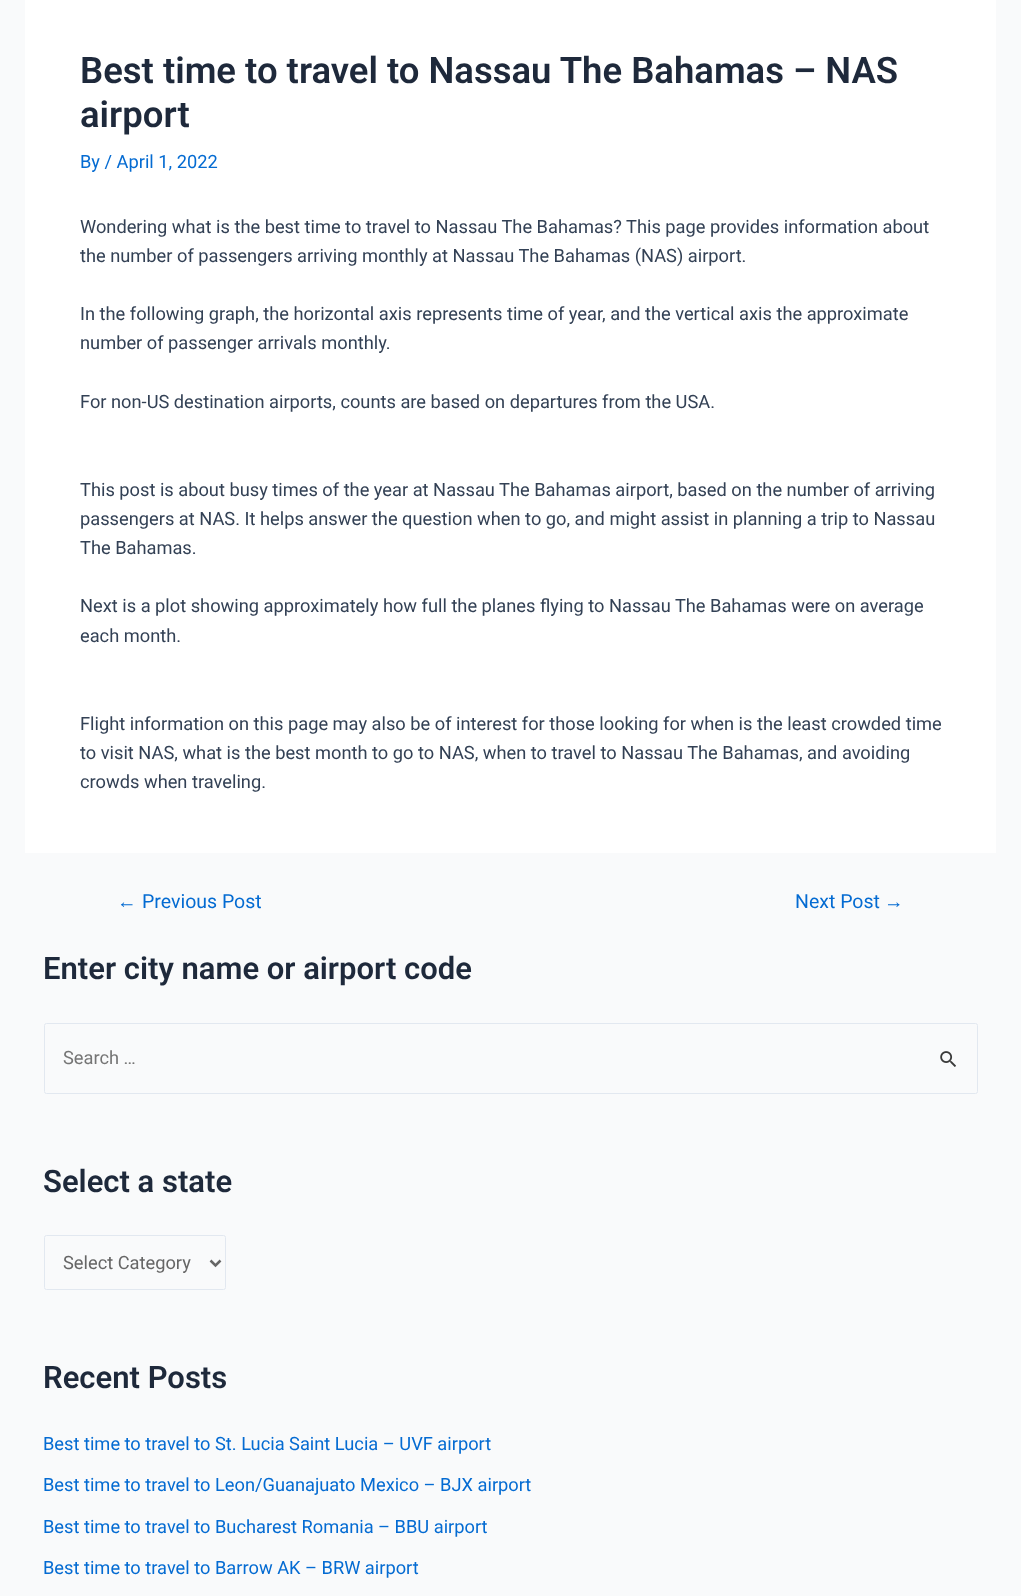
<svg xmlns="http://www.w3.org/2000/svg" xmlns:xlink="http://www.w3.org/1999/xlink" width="1021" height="1596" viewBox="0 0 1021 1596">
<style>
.cls-1{font:600 36.5px Roboto;fill:#1e293b}
.cls-2{font:18.25px Roboto;fill:#046bd2}
.cls-3{font:18.25px Roboto;fill:#334155}
.cls-4{font:19.5px Liberation Sans;fill:#046bd2}
.cls-5{font:19.5px Roboto;fill:#046bd2}
.cls-6{font:600 31px Roboto;fill:#1e293b}
.cls-7{font:18.25px Roboto;fill:#757575}
.cls-8{font:18.25px Roboto;fill:#666666}
</style>
<rect width="100%" height="100%" fill="#f9fafb"/>
<rect fill="#ffffff" x="25" y="0" width="971" height="853"/>
<rect fill="none" stroke="#e2e8f0" x="44.5" y="1023.5" width="933" height="70" rx="2"/>
<image xlink:href="image0.png" x="940" y="1051" width="16" height="16"/>
<rect fill="none" stroke="#e2e8f0" x="44.5" y="1235.5" width="181" height="54" rx="2"/>
<path fill="none" stroke="#666666" stroke-width="2.5" d="M210.5 1260.5L215.5 1265.5L220.5 1260.5"/>
<text class="cls-1"><tspan x="80" y="83">Best time to travel to Nassau The Bahamas – NAS</tspan><tspan x="80" y="127">airport</tspan></text>
<text class="cls-2" x="80" y="168">By / April 1, 2022</text>
<text class="cls-3"><tspan x="80" y="233">Wondering what is the best time to travel to Nassau The Bahamas? This page provides information about</tspan><tspan x="80" y="262">the number of passengers arriving monthly at Nassau The Bahamas (NAS) airport.</tspan></text>
<text class="cls-3"><tspan x="80" y="320">In the following graph, the horizontal axis represents time of year, and the vertical axis the approximate</tspan><tspan x="80" y="349">number of passenger arrivals monthly.</tspan></text>
<text class="cls-3" x="80" y="408">For non-US destination airports, counts are based on departures from the USA.</text>
<text class="cls-3"><tspan x="80" y="496">This post is about busy times of the year at Nassau The Bahamas airport, based on the number of arriving</tspan><tspan x="80" y="525">passengers at NAS. It helps answer the question when to go, and might assist in planning a trip to Nassau</tspan><tspan x="80" y="554">The Bahamas.</tspan></text>
<text class="cls-3"><tspan x="80" y="612">Next is a plot showing approximately how full the planes flying to Nassau The Bahamas were on average</tspan><tspan x="80" y="642">each month.</tspan></text>
<text class="cls-3"><tspan x="80" y="730">Flight information on this page may also be of interest for those looking for when is the least crowded time</tspan><tspan x="80" y="759">to visit NAS, what is the best month to go to NAS, when to travel to Nassau The Bahamas, and avoiding</tspan><tspan x="80" y="788">crowds when traveling.</tspan></text>
<text class="cls-4" x="117" y="908">←</text>
<text class="cls-5" x="142" y="908">Previous Post</text>
<text class="cls-5" x="795" y="908">Next Post</text>
<text class="cls-4" x="884" y="908">→</text>
<text class="cls-6" x="43" y="979">Enter city name or airport code</text>
<text class="cls-7" x="63" y="1064">Search …</text>
<text class="cls-6" x="43" y="1192">Select a state</text>
<text class="cls-8" x="63" y="1269">Select Category</text>
<text class="cls-6" x="43" y="1388">Recent Posts</text>
<text class="cls-2" x="43" y="1450">Best time to travel to St. Lucia Saint Lucia – UVF airport</text>
<text class="cls-2" x="43" y="1491">Best time to travel to Leon/Guanajuato Mexico – BJX airport</text>
<text class="cls-2" x="43" y="1533">Best time to travel to Bucharest Romania – BBU airport</text>
<text class="cls-2" x="43" y="1574">Best time to travel to Barrow AK – BRW airport</text>
</svg>
